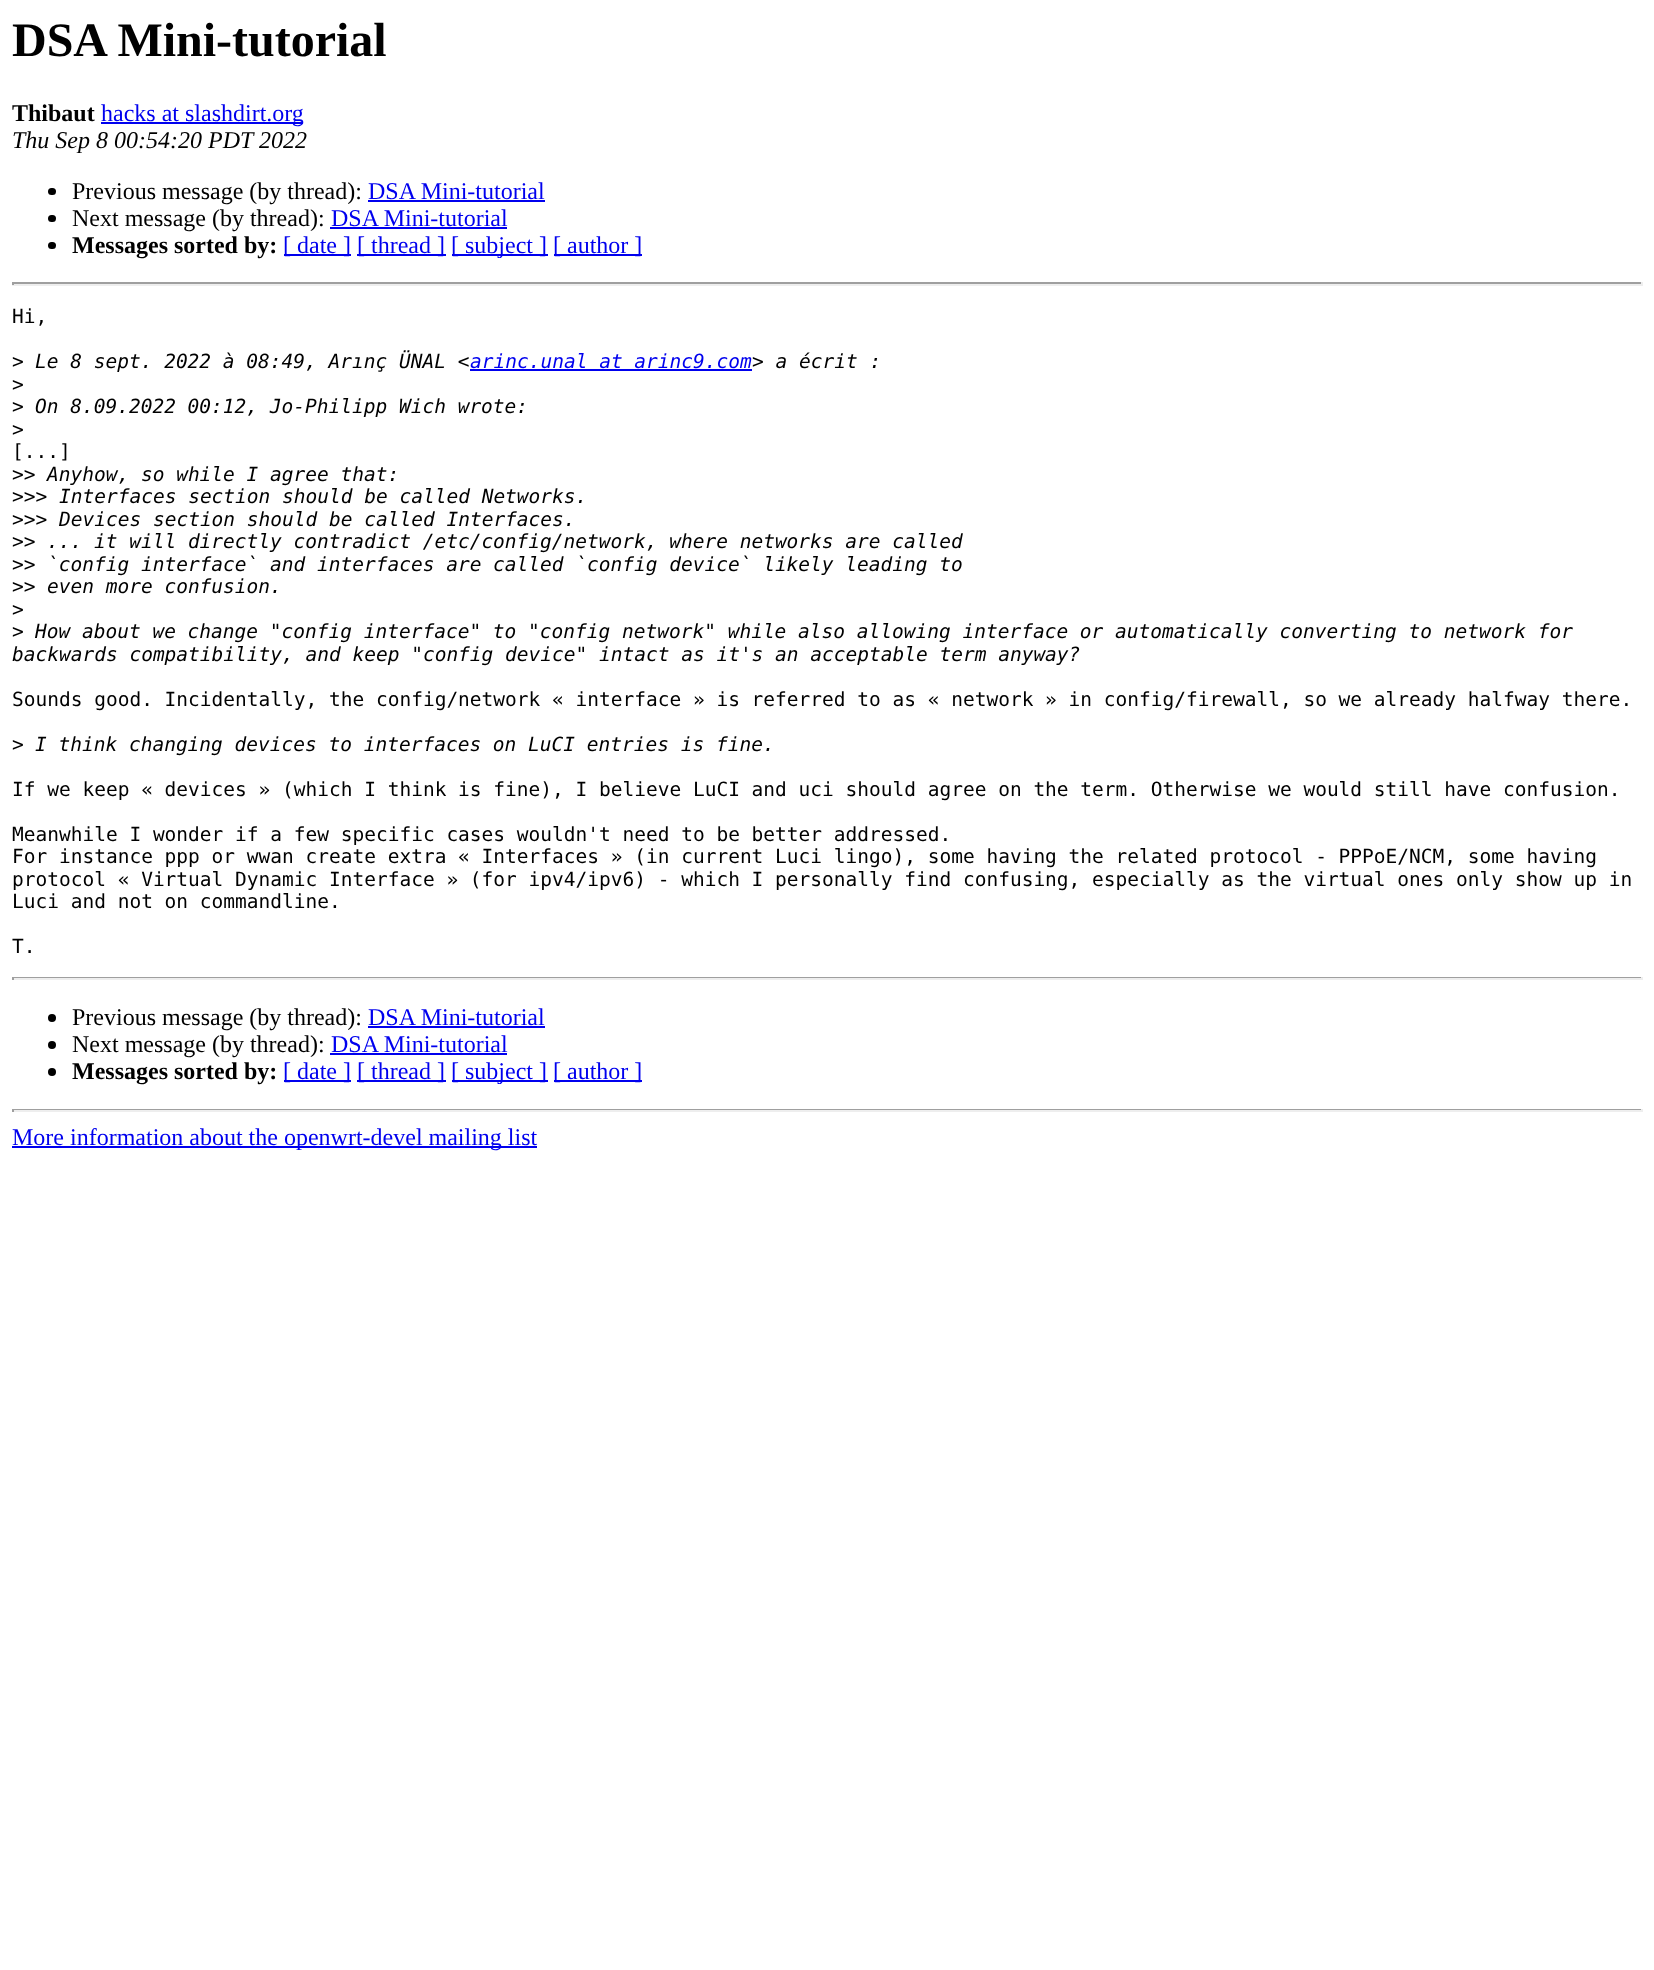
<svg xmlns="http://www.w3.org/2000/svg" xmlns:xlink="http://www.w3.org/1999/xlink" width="1654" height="1970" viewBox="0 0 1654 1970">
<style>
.cls-1{font:bold 48px Liberation Serif;fill:#000000}
.cls-2{font:bold 24px Liberation Serif;fill:#000000}
.cls-3{font:24px Liberation Serif;fill:#0000ee}
.cls-4{font:italic 24px Liberation Serif;fill:#000000}
.cls-5{font:24px Liberation Serif;fill:#000000}
.cls-6{font:19.5px DejaVu Sans Mono;fill:#000000}
.cls-7{font:italic 19.5px DejaVu Sans Mono;fill:#000000}
.cls-8{font:italic 19.5px DejaVu Sans Mono;fill:#0000ee}
</style>
<rect width="100%" height="100%" fill="#ffffff"/>
<rect fill="#0000ee" x="101" y="122" width="202" height="2"/>
<rect fill="#000000" x="48" y="188" width="8" height="7" rx="3.5"/>
<rect fill="#0000ee" x="368" y="200" width="177" height="2"/>
<rect fill="#000000" x="48" y="215" width="8" height="7" rx="3.5"/>
<rect fill="#0000ee" x="330" y="227" width="177" height="2"/>
<rect fill="#000000" x="48" y="242" width="8" height="7" rx="3.5"/>
<rect fill="#0000ee" x="284" y="254" width="67" height="2"/>
<rect fill="#0000ee" x="357" y="254" width="89" height="2"/>
<rect fill="#0000ee" x="452" y="254" width="96" height="2"/>
<rect fill="#0000ee" x="554" y="254" width="88" height="2"/>
<rect fill="#9f9f9f" x="12" y="282" width="1631" height="2"/>
<rect fill="#eeeeee" x="1641" y="282" width="2" height="3"/>
<rect fill="#eeeeee" x="12" y="284" width="1631" height="2"/>
<rect fill="#9f9f9f" x="12" y="282" width="2" height="3"/>
<rect fill="#0000ee" x="470" y="369" width="282" height="2"/>
<rect fill="#9f9f9f" x="12" y="977" width="1631" height="1"/>
<rect fill="#eeeeee" x="1641" y="977" width="2" height="3"/>
<rect fill="#eeeeee" x="12" y="978" width="1631" height="2"/>
<rect fill="#9f9f9f" x="12" y="977" width="2" height="3"/>
<circle fill="#000000" cx="52" cy="1018" r="4"/>
<rect fill="#0000ee" x="368" y="1026" width="177" height="2"/>
<circle fill="#000000" cx="52" cy="1045" r="4"/>
<rect fill="#0000ee" x="330" y="1053" width="177" height="2"/>
<circle fill="#000000" cx="52" cy="1072" r="4"/>
<rect fill="#0000ee" x="284" y="1080" width="67" height="2"/>
<rect fill="#0000ee" x="357" y="1080" width="89" height="2"/>
<rect fill="#0000ee" x="452" y="1080" width="96" height="2"/>
<rect fill="#0000ee" x="554" y="1080" width="88" height="2"/>
<rect fill="#9f9f9f" x="12" y="1109" width="1631" height="1"/>
<rect fill="#eeeeee" x="1641" y="1109" width="2" height="3"/>
<rect fill="#eeeeee" x="12" y="1110" width="1631" height="2"/>
<rect fill="#9f9f9f" x="12" y="1109" width="2" height="3"/>
<rect fill="#0000ee" x="12" y="1146" width="525" height="2"/>
<text class="cls-1" x="12" y="56">DSA Mini-tutorial</text>
<text class="cls-2" x="12" y="121">Thibaut</text>
<text class="cls-3" x="101" y="121">hacks at slashdirt.org</text>
<text class="cls-4" x="12" y="148">Thu Sep 8 00:54:20 PDT 2022</text>
<text class="cls-5" x="72" y="199">Previous message (by thread):</text>
<text class="cls-3" x="368" y="199">DSA Mini-tutorial</text>
<text class="cls-5" x="72" y="226">Next message (by thread):</text>
<text class="cls-3" x="331" y="226">DSA Mini-tutorial</text>
<text class="cls-2" x="72" y="253">Messages sorted by:</text>
<text class="cls-3" x="283" y="253">[ date ]</text>
<text class="cls-3" x="357" y="253">[ thread ]</text>
<text class="cls-3" x="451" y="253">[ subject ]</text>
<text class="cls-3" x="553" y="253">[ author ]</text>
<text class="cls-6" x="12" y="323">Hi,</text>
<text class="cls-6" x="12" y="368">&gt;</text>
<text class="cls-7" x="35" y="368">Le 8 sept. 2022 à 08:49, Arınç ÜNAL &lt;</text>
<text class="cls-8" x="470" y="368">arinc.unal at arinc9.com</text>
<text class="cls-7" x="752" y="368">&gt; a écrit :</text>
<text class="cls-6"><tspan x="12" y="391">&gt;</tspan><tspan x="12" y="413">&gt;</tspan></text>
<text class="cls-7" x="35" y="413">On 8.09.2022 00:12, Jo-Philipp Wich wrote:</text>
<text class="cls-6"><tspan x="12" y="436">&gt;</tspan><tspan x="12" y="458">[...]</tspan><tspan x="12" y="481">&gt;&gt;</tspan></text>
<text class="cls-7" x="47" y="481">Anyhow, so while I agree that:</text>
<text class="cls-6" x="12" y="503">&gt;&gt;&gt;</text>
<text class="cls-7" x="59" y="503">Interfaces section should be called Networks.</text>
<text class="cls-6" x="12" y="526">&gt;&gt;&gt;</text>
<text class="cls-7" x="59" y="526">Devices section should be called Interfaces.</text>
<text class="cls-6" x="12" y="548">&gt;&gt;</text>
<text class="cls-7" x="47" y="548">... it will directly contradict /etc/config/network, where networks are called</text>
<text class="cls-6" x="12" y="571">&gt;&gt;</text>
<text class="cls-7" x="47" y="571">`config interface` and interfaces are called `config device` likely leading to</text>
<text class="cls-6" x="12" y="593">&gt;&gt;</text>
<text class="cls-7" x="47" y="593">even more confusion.</text>
<text class="cls-6"><tspan x="12" y="616">&gt;</tspan><tspan x="12" y="638">&gt;</tspan></text>
<text class="cls-7" x="35" y="638">How about we change "config interface" to "config network" while also allowing interface or automatically converting to network for</text>
<text class="cls-7" x="12" y="661">backwards compatibility, and keep "config device" intact as it's an acceptable term anyway?</text>
<text class="cls-6" x="12" y="706">Sounds good. Incidentally, the config/network « interface » is referred to as « network » in config/firewall, so we already halfway there.</text>
<text class="cls-6" x="12" y="751">&gt;</text>
<text class="cls-7" x="35" y="751">I think changing devices to interfaces on LuCI entries is fine.</text>
<text class="cls-6" x="12" y="796">If we keep « devices » (which I think is fine), I believe LuCI and uci should agree on the term. Otherwise we would still have confusion.</text>
<text class="cls-6"><tspan x="12" y="841">Meanwhile I wonder if a few specific cases wouldn't need to be better addressed.</tspan><tspan x="12" y="863">For instance ppp or wwan create extra « Interfaces » (in current Luci lingo), some having the related protocol - PPPoE/NCM, some having</tspan><tspan x="12" y="886">protocol « Virtual Dynamic Interface » (for ipv4/ipv6) - which I personally find confusing, especially as the virtual ones only show up in</tspan><tspan x="12" y="908">Luci and not on commandline.</tspan></text>
<text class="cls-6" x="12" y="953">T.</text>
<text class="cls-5" x="72" y="1025">Previous message (by thread):</text>
<text class="cls-3" x="368" y="1025">DSA Mini-tutorial</text>
<text class="cls-5" x="72" y="1052">Next message (by thread):</text>
<text class="cls-3" x="331" y="1052">DSA Mini-tutorial</text>
<text class="cls-2" x="72" y="1079">Messages sorted by:</text>
<text class="cls-3" x="283" y="1079">[ date ]</text>
<text class="cls-3" x="357" y="1079">[ thread ]</text>
<text class="cls-3" x="451" y="1079">[ subject ]</text>
<text class="cls-3" x="553" y="1079">[ author ]</text>
<text class="cls-3" x="12" y="1145">More information about the openwrt-devel mailing list</text>
</svg>
